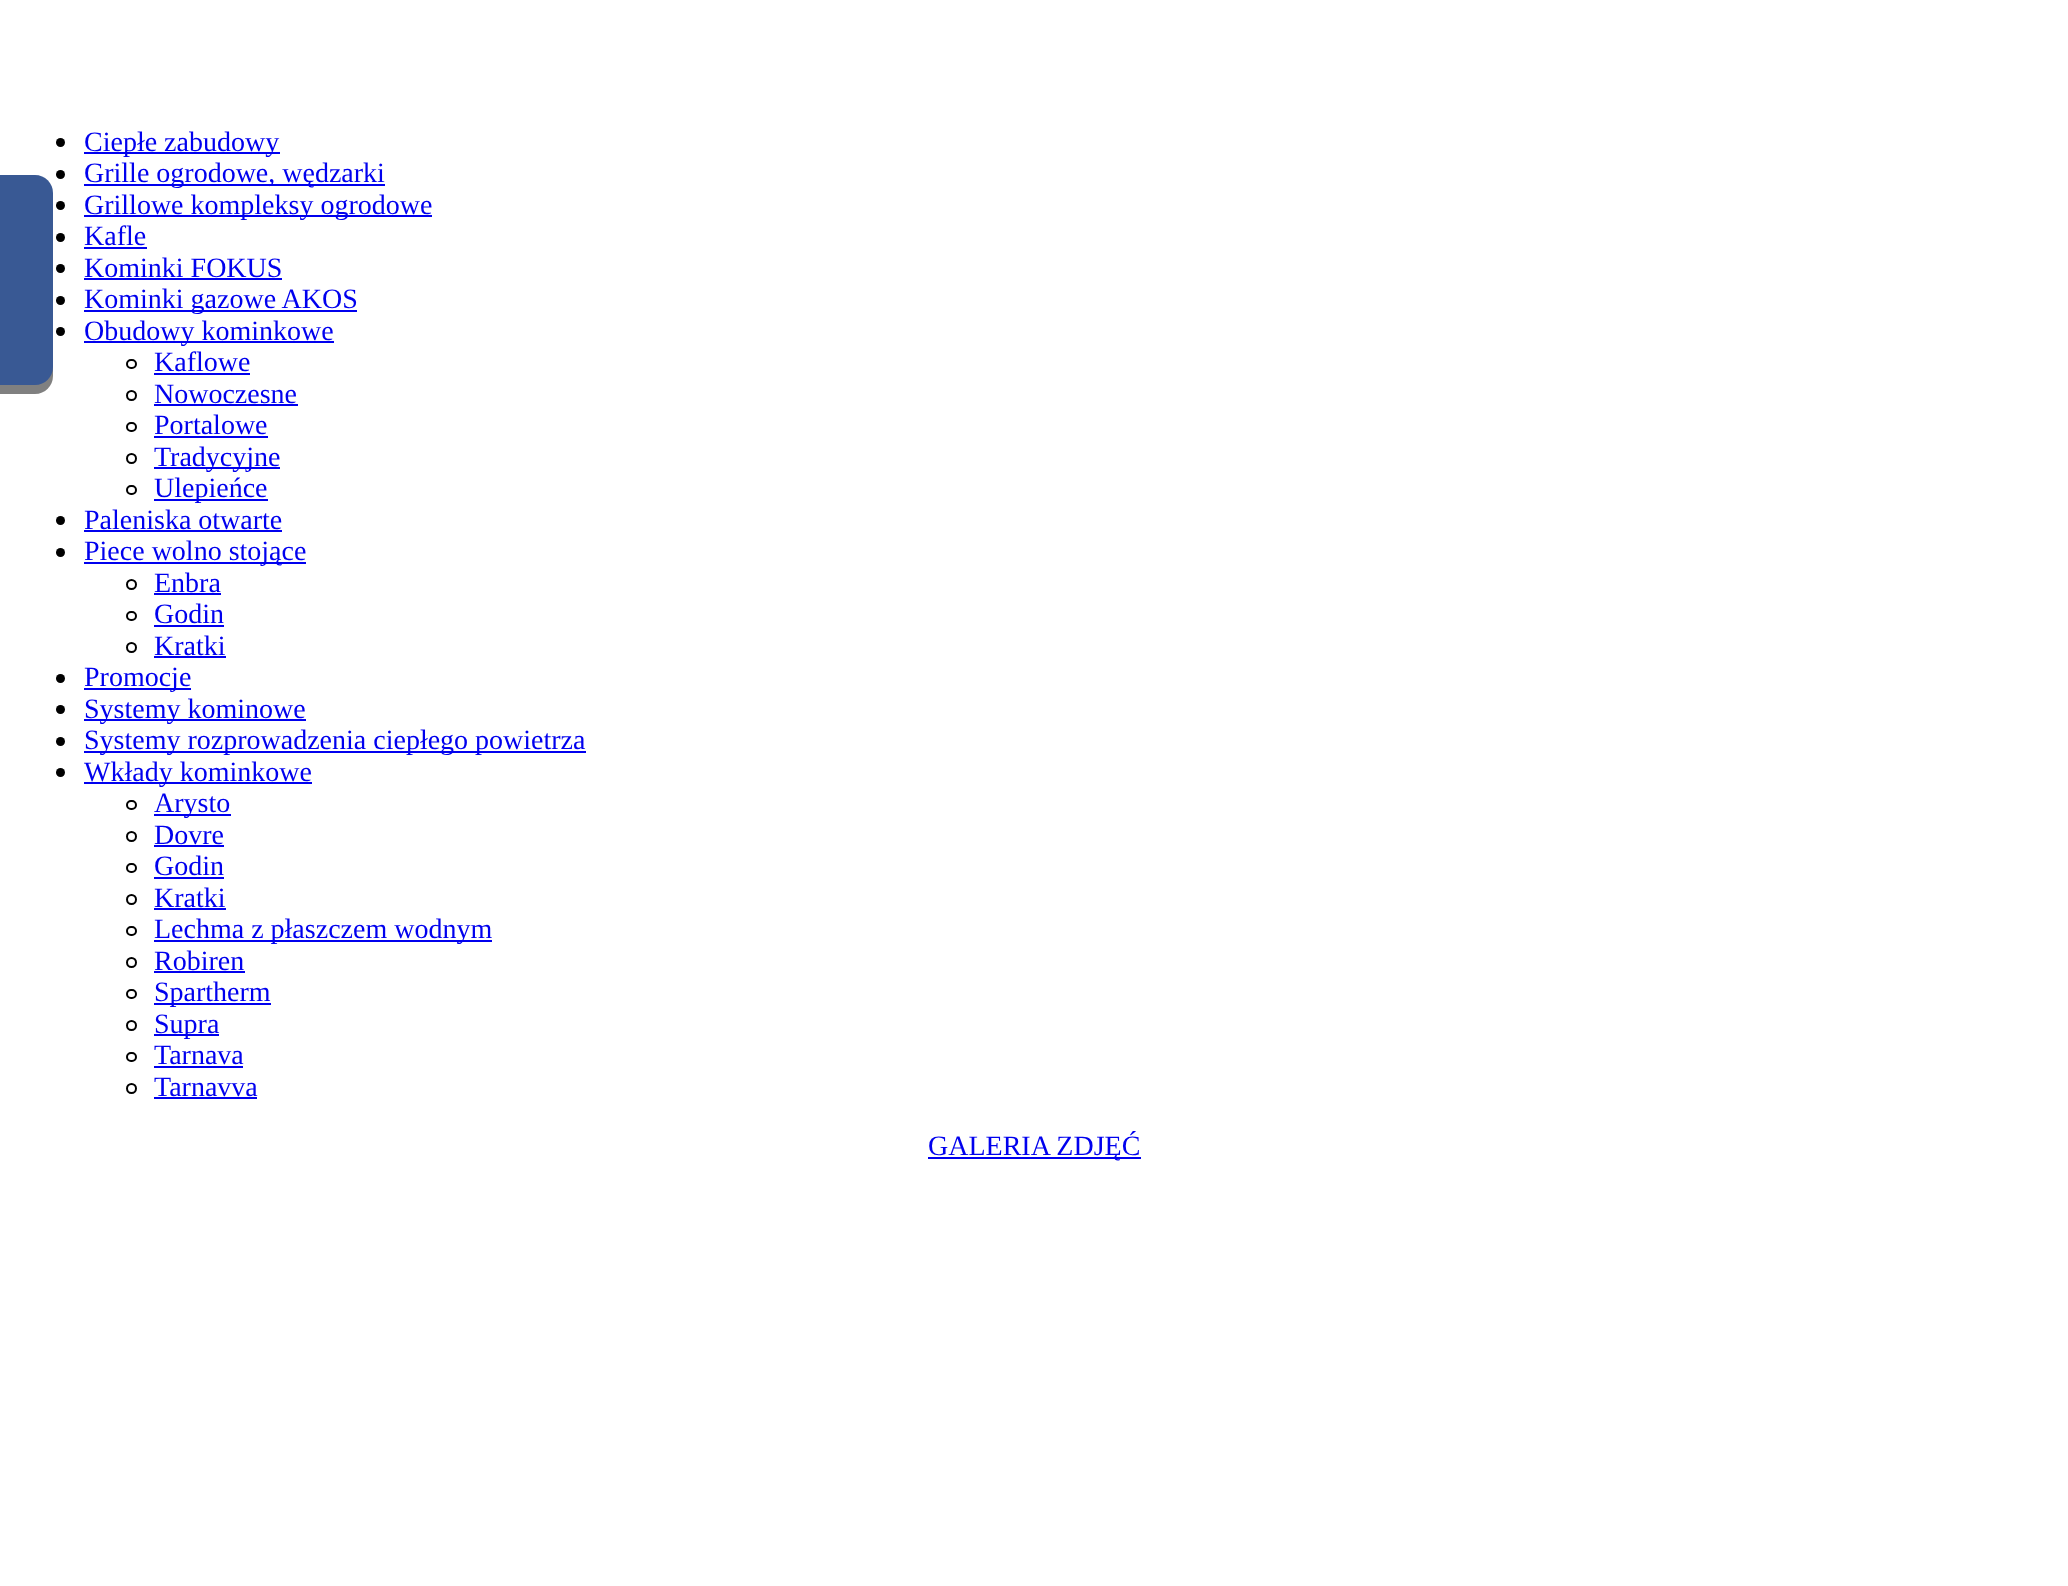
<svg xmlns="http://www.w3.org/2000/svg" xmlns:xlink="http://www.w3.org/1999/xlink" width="2068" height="1586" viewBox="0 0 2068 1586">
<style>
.cls-1{font:28px Liberation Serif;fill:#0000ee}
</style>
<rect width="100%" height="100%" fill="#ffffff"/>
<path fill="#808080" d="M0 184H35C45 184 53 192 53 202V376C53 386 45 394 35 394H0Z"/>
<path fill="#395994" d="M0 175H35C45 175 53 183 53 193V367C53 377 45 385 35 385H0Z"/>
<circle fill="#000000" cx="60.5" cy="142.5" r="4.5"/>
<rect fill="#0000ee" x="84" y="152" width="196" height="2"/>
<circle fill="#000000" cx="60.5" cy="174.5" r="4.5"/>
<rect fill="#0000ee" x="84" y="184" width="301" height="2"/>
<circle fill="#000000" cx="60.5" cy="205.5" r="4.5"/>
<rect fill="#0000ee" x="84" y="215" width="348" height="2"/>
<circle fill="#000000" cx="60.5" cy="237.5" r="4.5"/>
<rect fill="#0000ee" x="84" y="247" width="63" height="2"/>
<circle fill="#000000" cx="60.5" cy="268.5" r="4.5"/>
<rect fill="#0000ee" x="84" y="278" width="198" height="2"/>
<circle fill="#000000" cx="60.5" cy="300.5" r="4.5"/>
<rect fill="#0000ee" x="84" y="310" width="273" height="2"/>
<circle fill="#000000" cx="60.5" cy="331.5" r="4.5"/>
<rect fill="#0000ee" x="84" y="341" width="250" height="2"/>
<rect fill="none" stroke="#000000" stroke-width="2" x="127" y="360" width="9" height="8" rx="4"/>
<rect fill="#0000ee" x="154" y="373" width="96" height="2"/>
<circle fill="none" stroke="#000000" stroke-width="2" cx="131.5" cy="395.5" r="4.5"/>
<rect fill="#0000ee" x="154" y="404" width="144" height="2"/>
<rect fill="none" stroke="#000000" stroke-width="2" x="127" y="423" width="9" height="8" rx="4"/>
<rect fill="#0000ee" x="154" y="436" width="114" height="2"/>
<circle fill="none" stroke="#000000" stroke-width="2" cx="131.5" cy="458.5" r="4.5"/>
<rect fill="#0000ee" x="154" y="467" width="126" height="2"/>
<rect fill="none" stroke="#000000" stroke-width="2" x="127" y="486" width="9" height="8" rx="4"/>
<rect fill="#0000ee" x="154" y="499" width="114" height="2"/>
<circle fill="#000000" cx="60.5" cy="520.5" r="4.5"/>
<rect fill="#0000ee" x="84" y="530" width="198" height="2"/>
<circle fill="#000000" cx="60.5" cy="552.5" r="4.5"/>
<rect fill="#0000ee" x="84" y="562" width="222" height="2"/>
<circle fill="none" stroke="#000000" stroke-width="2" cx="131.5" cy="584.5" r="4.5"/>
<rect fill="#0000ee" x="154" y="593" width="67" height="2"/>
<rect fill="none" stroke="#000000" stroke-width="2" x="127" y="612" width="9" height="8" rx="4"/>
<rect fill="#0000ee" x="154" y="625" width="70" height="2"/>
<circle fill="none" stroke="#000000" stroke-width="2" cx="131.5" cy="647.5" r="4.5"/>
<rect fill="#0000ee" x="154" y="656" width="72" height="2"/>
<circle fill="#000000" cx="60.5" cy="678.5" r="4.5"/>
<rect fill="#0000ee" x="84" y="688" width="107" height="2"/>
<circle fill="#000000" cx="60.5" cy="709.5" r="4.5"/>
<rect fill="#0000ee" x="84" y="719" width="222" height="2"/>
<circle fill="#000000" cx="60.5" cy="741.5" r="4.5"/>
<rect fill="#0000ee" x="84" y="751" width="502" height="2"/>
<circle fill="#000000" cx="60.5" cy="772.5" r="4.5"/>
<rect fill="#0000ee" x="84" y="782" width="228" height="2"/>
<rect fill="none" stroke="#000000" stroke-width="2" x="127" y="801" width="9" height="8" rx="4"/>
<rect fill="#0000ee" x="154" y="814" width="77" height="2"/>
<circle fill="none" stroke="#000000" stroke-width="2" cx="131.5" cy="836.5" r="4.5"/>
<rect fill="#0000ee" x="154" y="845" width="70" height="2"/>
<rect fill="none" stroke="#000000" stroke-width="2" x="127" y="864" width="9" height="8" rx="4"/>
<rect fill="#0000ee" x="154" y="877" width="70" height="2"/>
<circle fill="none" stroke="#000000" stroke-width="2" cx="131.5" cy="899.5" r="4.5"/>
<rect fill="#0000ee" x="154" y="908" width="72" height="2"/>
<rect fill="none" stroke="#000000" stroke-width="2" x="127" y="927" width="9" height="8" rx="4"/>
<rect fill="#0000ee" x="154" y="940" width="338" height="2"/>
<circle fill="none" stroke="#000000" stroke-width="2" cx="131.5" cy="962.5" r="4.5"/>
<rect fill="#0000ee" x="154" y="971" width="91" height="2"/>
<rect fill="none" stroke="#000000" stroke-width="2" x="127" y="990" width="9" height="8" rx="4"/>
<rect fill="#0000ee" x="154" y="1003" width="117" height="2"/>
<circle fill="none" stroke="#000000" stroke-width="2" cx="131.5" cy="1025.5" r="4.5"/>
<rect fill="#0000ee" x="154" y="1034" width="65" height="2"/>
<rect fill="none" stroke="#000000" stroke-width="2" x="127" y="1053" width="9" height="8" rx="4"/>
<rect fill="#0000ee" x="154" y="1066" width="89" height="2"/>
<circle fill="none" stroke="#000000" stroke-width="2" cx="131.5" cy="1088.5" r="4.5"/>
<rect fill="#0000ee" x="154" y="1097" width="103" height="2"/>
<rect fill="#0000ee" x="928" y="1157" width="213" height="2"/>
<text class="cls-1"><tspan x="84" y="151">Ciepłe zabudowy</tspan><tspan x="84" y="182">Grille ogrodowe, wędzarki</tspan><tspan x="84" y="214">Grillowe kompleksy ogrodowe</tspan><tspan x="84" y="245">Kafle</tspan><tspan x="84" y="277">Kominki FOKUS</tspan><tspan x="84" y="308">Kominki gazowe AKOS</tspan><tspan x="84" y="340">Obudowy kominkowe</tspan></text>
<text class="cls-1"><tspan x="154" y="371">Kaflowe</tspan><tspan x="154" y="403">Nowoczesne</tspan><tspan x="154" y="434">Portalowe</tspan><tspan x="154" y="466">Tradycyjne</tspan><tspan x="154" y="497">Ulepieńce</tspan></text>
<text class="cls-1"><tspan x="84" y="529">Paleniska otwarte</tspan><tspan x="84" y="560">Piece wolno stojące</tspan></text>
<text class="cls-1"><tspan x="154" y="592">Enbra</tspan><tspan x="154" y="623">Godin</tspan><tspan x="154" y="655">Kratki</tspan></text>
<text class="cls-1"><tspan x="84" y="686">Promocje</tspan><tspan x="84" y="718">Systemy kominowe</tspan><tspan x="84" y="749">Systemy rozprowadzenia ciepłego powietrza</tspan><tspan x="84" y="781">Wkłady kominkowe</tspan></text>
<text class="cls-1"><tspan x="154" y="812">Arysto</tspan><tspan x="154" y="844">Dovre</tspan><tspan x="154" y="875">Godin</tspan><tspan x="154" y="907">Kratki</tspan><tspan x="154" y="938">Lechma z płaszczem wodnym</tspan><tspan x="154" y="970">Robiren</tspan><tspan x="154" y="1001">Spartherm</tspan><tspan x="154" y="1033">Supra</tspan><tspan x="154" y="1064">Tarnava</tspan><tspan x="154" y="1096">Tarnavva</tspan></text>
<text class="cls-1" x="928" y="1155">GALERIA ZDJĘĆ</text>
</svg>
